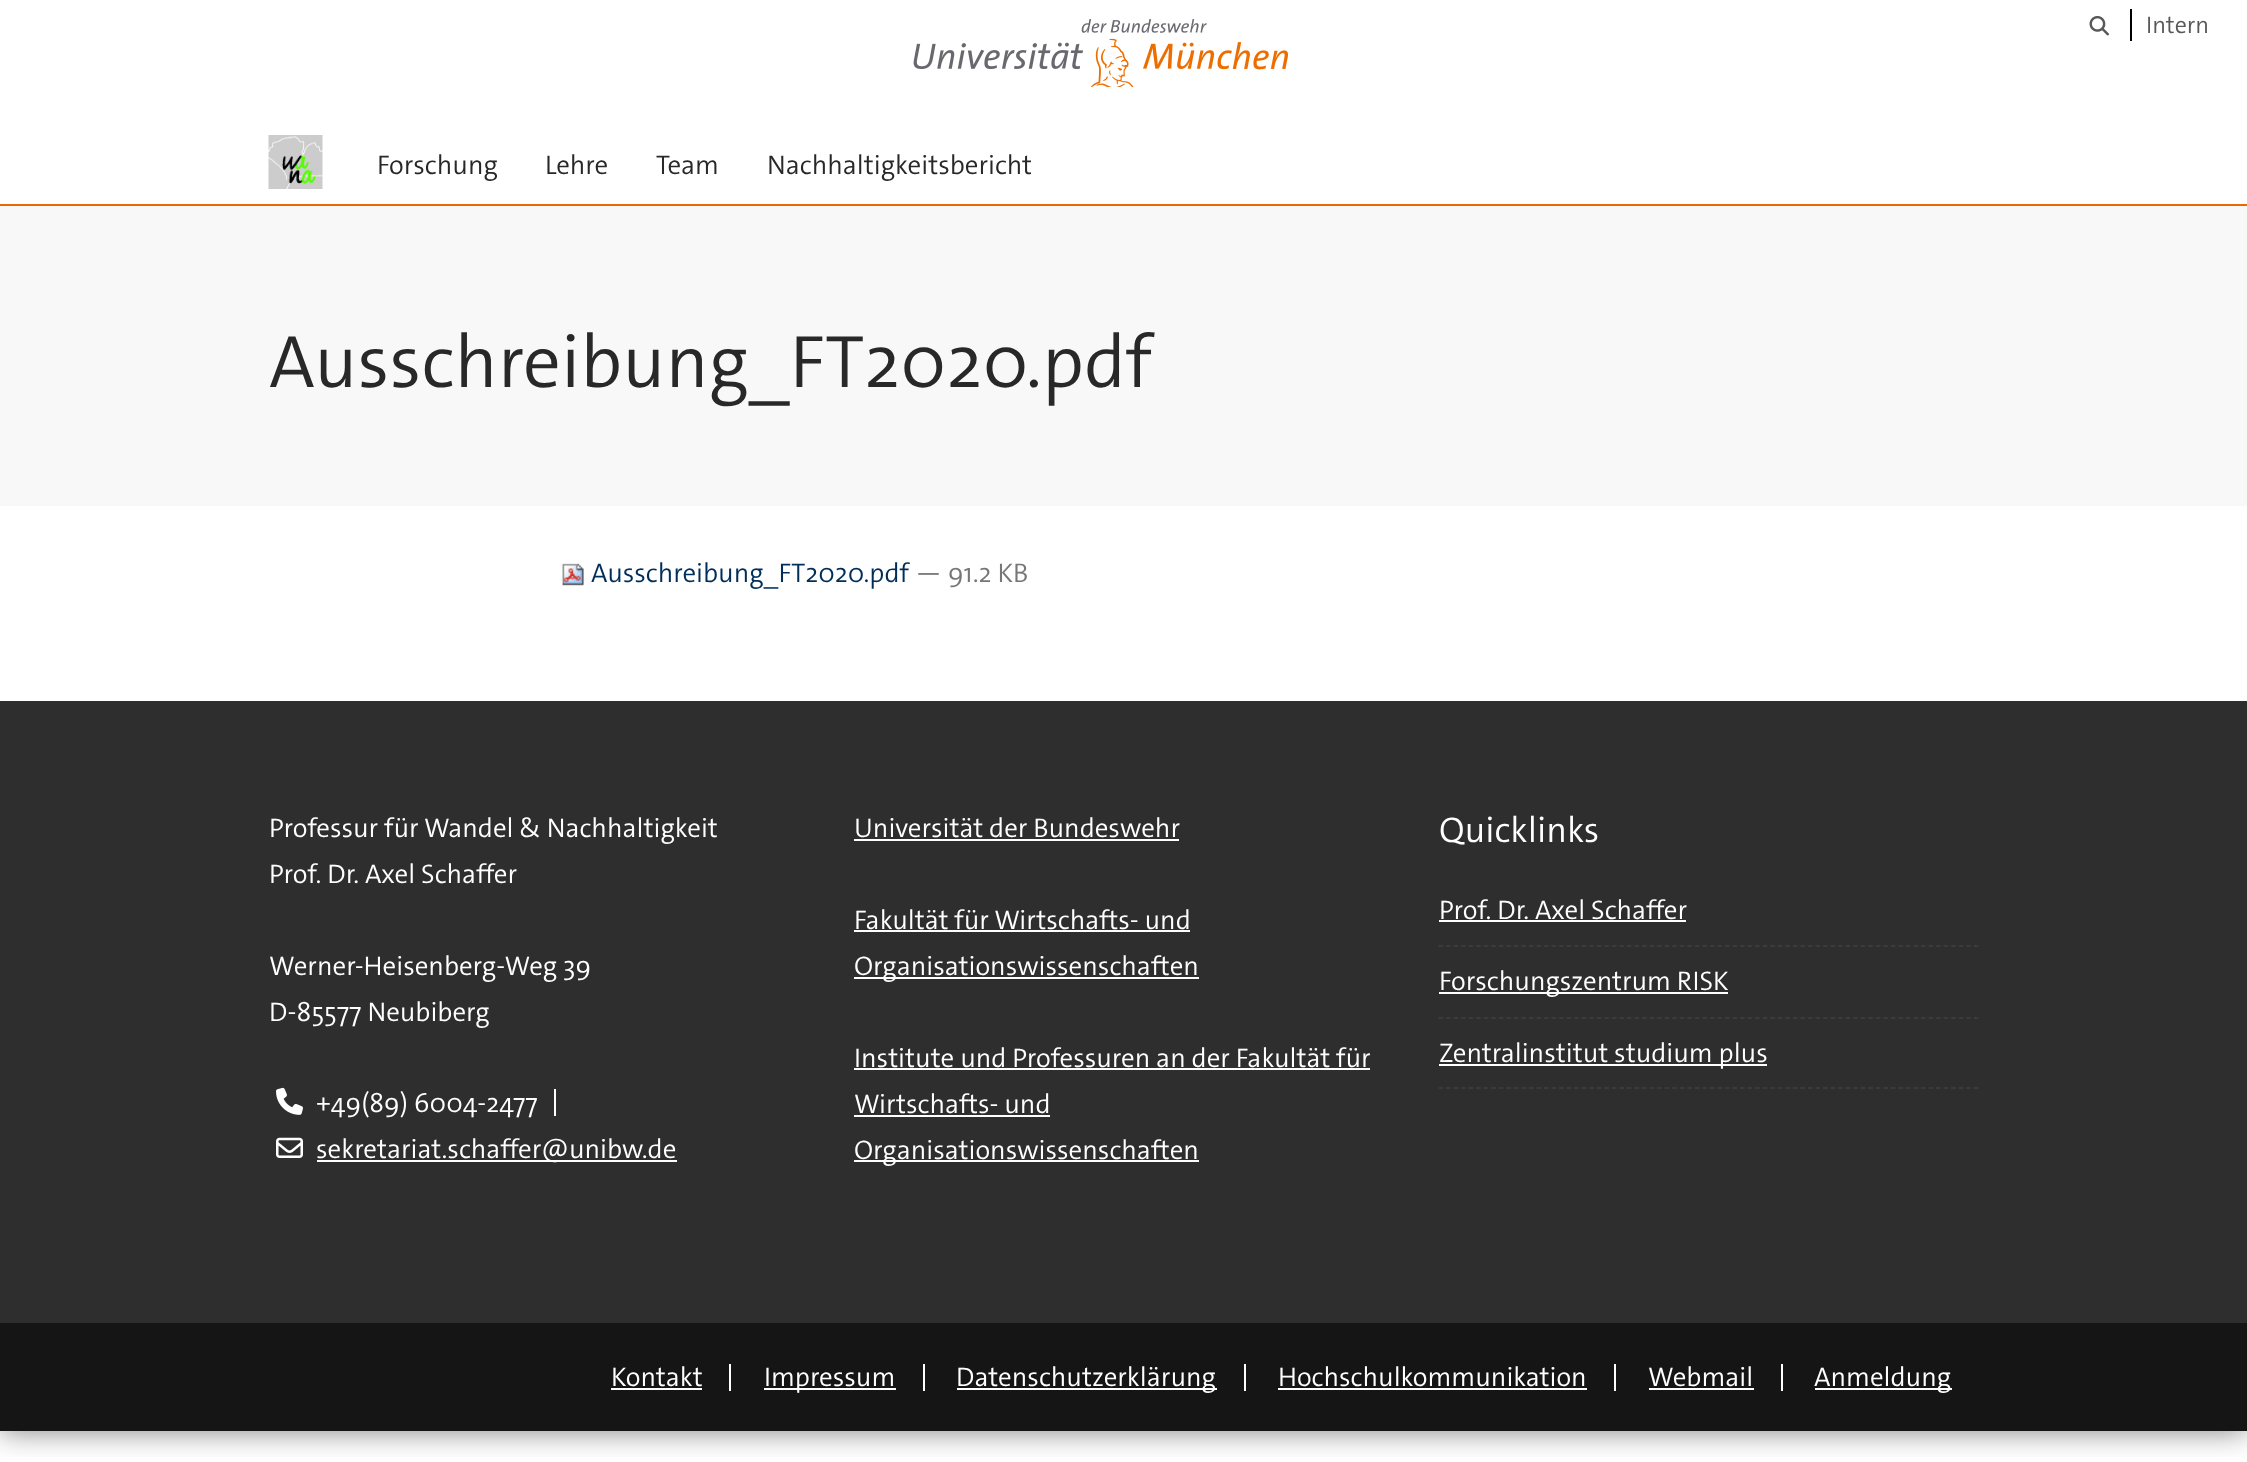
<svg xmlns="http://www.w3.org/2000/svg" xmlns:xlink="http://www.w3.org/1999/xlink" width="2247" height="1462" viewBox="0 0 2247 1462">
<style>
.cls-1{font:300 24px 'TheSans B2';fill:#595858}
.cls-2{font:300 27px 'TheSans B2';fill:#282828}
.cls-3{font:300 75px 'TheSans B2';fill:#282828}
.cls-4{font:300 27px 'TheSans B2';fill:#002e5b}
.cls-5{font:300 27px 'TheSans B2';fill:#777777}
.cls-6{font:300 27px 'TheSans B2';fill:#ffffff}
.cls-7{font:300 36px 'TheSans B2';fill:#ffffff}
</style>
<defs>
<clipPath id="clip1"><rect x="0" y="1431" width="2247" height="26"/></clipPath>
</defs>
<rect width="100%" height="100%" fill="#ffffff"/>
<g clip-path="url(#clip1)">
<rect fill="#000000" fill-opacity="0.5" filter="blur(15px)" x="0" y="0" width="2247" height="1431"/>
</g>
<rect fill="#ed6600" x="0" y="204" width="2247" height="2"/>
<image xlink:href="image0.png" x="1090" y="38" width="44" height="49"/>
<image xlink:href="image1.png" x="913" y="19" width="376" height="51"/>
<image xlink:href="image2.png" x="2089" y="15" width="20" height="21"/>
<rect fill="#000000" x="2130" y="9" width="2" height="32"/>
<image xlink:href="image3.png" x="268" y="135" width="55" height="54"/>
<rect fill="#f8f8f8" x="0" y="206" width="2247" height="300"/>
<image xlink:href="image4.png" x="562" y="563" width="22" height="23"/>
<rect fill="#2e2e2e" x="0" y="701" width="2247" height="622"/>
<rect fill="#ffffff" x="554" y="1089" width="2" height="27"/>
<image xlink:href="image5.png" x="276" y="1087" width="27" height="28"/>
<image xlink:href="image6.png" x="276" y="1137" width="27" height="21"/>
<rect fill="#ffffff" x="317" y="1160" width="360" height="2"/>
<rect fill="#ffffff" x="854" y="839" width="325" height="2"/>
<rect fill="#ffffff" x="854" y="930" width="336" height="2"/>
<rect fill="#ffffff" x="854" y="977" width="345" height="2"/>
<rect fill="#ffffff" x="854" y="1068" width="516" height="2"/>
<rect fill="#ffffff" x="854" y="1115" width="196" height="2"/>
<rect fill="#ffffff" x="854" y="1160" width="345" height="2"/>
<path fill="none" stroke="#404040" stroke-width="1.5" stroke-dasharray="4.5 3.04" d="M1438.5 946H1978.5"/>
<rect fill="#ffffff" x="1439" y="920" width="247" height="2"/>
<path fill="none" stroke="#404040" stroke-width="1.5" stroke-dasharray="4.5 3.04" d="M1438.5 1018H1978.5"/>
<rect fill="#ffffff" x="1439" y="992" width="289" height="2"/>
<path fill="none" stroke="#404040" stroke-width="1.5" stroke-dasharray="4.5 3.04" d="M1438.5 1088H1978.5"/>
<rect fill="#ffffff" x="1439" y="1064" width="328" height="2"/>
<rect fill="#151515" x="0" y="1323" width="2247" height="108"/>
<rect fill="#ffffff" x="729" y="1364" width="2" height="27"/>
<rect fill="#ffffff" x="611" y="1388" width="91" height="2"/>
<rect fill="#ffffff" x="923" y="1364" width="2" height="27"/>
<rect fill="#ffffff" x="764" y="1388" width="132" height="2"/>
<rect fill="#ffffff" x="1244" y="1364" width="2" height="27"/>
<rect fill="#ffffff" x="957" y="1388" width="260" height="2"/>
<rect fill="#ffffff" x="1614" y="1364" width="2" height="27"/>
<rect fill="#ffffff" x="1278" y="1388" width="309" height="2"/>
<rect fill="#ffffff" x="1781" y="1364" width="2" height="27"/>
<rect fill="#ffffff" x="1649" y="1388" width="105" height="2"/>
<rect fill="#ffffff" x="1815" y="1388" width="137" height="2"/>
<text class="cls-1" x="2146" y="33">Intern</text>
<text class="cls-2" x="377" y="174">Forschung</text>
<text class="cls-2" x="545" y="174">Lehre</text>
<text class="cls-2" x="656" y="174">Team</text>
<text class="cls-2" x="767" y="174">Nachhaltigkeitsbericht</text>
<text class="cls-3" x="269" y="387">Ausschreibung_FT2020.pdf</text>
<text class="cls-4" x="591" y="582">Ausschreibung_FT2020.pdf</text>
<text class="cls-5" x="915" y="582">— 91.2 KB</text>
<text class="cls-6"><tspan x="269" y="837">Professur für Wandel &amp; Nachhaltigkeit</tspan><tspan x="269" y="883">Prof. Dr. Axel Schaffer</tspan></text>
<text class="cls-6"><tspan x="269" y="975">Werner-Heisenberg-Weg 39</tspan><tspan x="269" y="1021">D-85577 Neubiberg</tspan></text>
<text class="cls-6"><tspan x="316" y="1112">+49(89) 6004-2477</tspan><tspan x="316" y="1158">sekretariat.schaffer@unibw.de</tspan></text>
<text class="cls-6" x="854" y="837">Universität der Bundeswehr</text>
<text class="cls-6"><tspan x="854" y="929">Fakultät für Wirtschafts- und</tspan><tspan x="854" y="975">Organisationswissenschaften</tspan></text>
<text class="cls-6"><tspan x="854" y="1067">Institute und Professuren an der Fakultät für</tspan><tspan x="854" y="1113">Wirtschafts- und</tspan><tspan x="854" y="1159">Organisationswissenschaften</tspan></text>
<text class="cls-7" x="1439" y="842">Quicklinks</text>
<text class="cls-6" x="1439" y="919">Prof. Dr. Axel Schaffer</text>
<text class="cls-6" x="1439" y="990">Forschungszentrum RISK</text>
<text class="cls-6" x="1439" y="1062">Zentralinstitut studium plus</text>
<text class="cls-6" x="611" y="1386">Kontakt</text>
<text class="cls-6" x="764" y="1386">Impressum</text>
<text class="cls-6" x="956" y="1386">Datenschutzerklärung</text>
<text class="cls-6" x="1278" y="1386">Hochschulkommunikation</text>
<text class="cls-6" x="1648" y="1386">Webmail</text>
<text class="cls-6" x="1814" y="1386">Anmeldung</text>
</svg>
